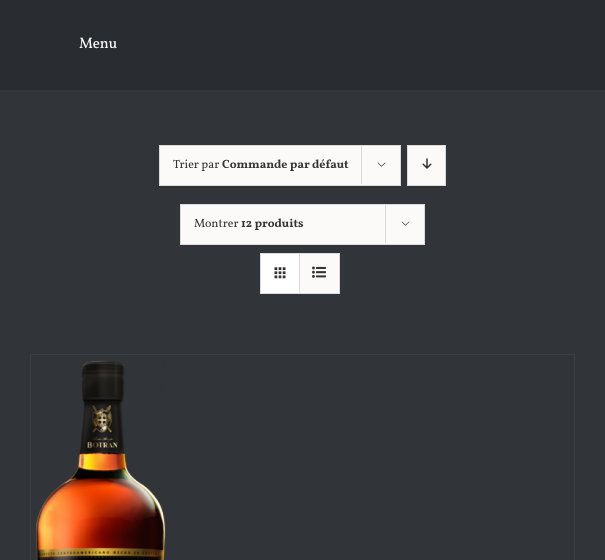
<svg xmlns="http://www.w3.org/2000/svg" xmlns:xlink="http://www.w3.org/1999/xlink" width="605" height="560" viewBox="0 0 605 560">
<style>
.cls-1{font:15px Vollkorn;fill:#ffffff}
.cls-2{font:12px Vollkorn;fill:#333333}
.cls-3{font:bold 12px Vollkorn;fill:#333333}
</style>
<rect width="100%" height="100%" fill="#313539"/>
<rect fill="#292c30" x="0" y="0" width="605" height="90"/>
<rect fill="#fbfaf9" stroke="#dbdbdb" x="159.5" y="145.5" width="241" height="40"/>
<rect fill="#dbdbdb" x="361" y="145" width="1" height="39"/>
<image xlink:href="image0.png" x="377" y="162" width="9" height="5"/>
<rect fill="#fbfaf9" stroke="#dbdbdb" x="407.5" y="145.5" width="38" height="40"/>
<image xlink:href="image1.png" x="422" y="158" width="10" height="11"/>
<rect fill="#fbfaf9" stroke="#dbdbdb" x="180.5" y="204.5" width="244" height="40"/>
<rect fill="#dbdbdb" x="385" y="204" width="1" height="39"/>
<image xlink:href="image0.png" x="401" y="221" width="9" height="5"/>
<rect fill="none" stroke="#dbdbdb" x="260.5" y="253.5" width="79" height="40"/>
<rect fill="#ffffff" x="261" y="254" width="38" height="39"/>
<rect fill="#dbdbdb" x="299" y="254" width="1" height="39"/>
<image xlink:href="image2.png" x="274" y="267" width="12" height="12"/>
<rect fill="#fbfaf9" x="300" y="254" width="39" height="39"/>
<image xlink:href="image3.png" x="312" y="266" width="14" height="12"/>
<rect fill="#3e3e3e" x="30" y="354" width="545" height="1"/>
<rect fill="#3e3e3e" x="574" y="354" width="1" height="206"/>
<rect fill="#3e3e3e" x="30" y="354" width="1" height="206"/>
<image xlink:href="image4.png" x="36" y="360" width="130" height="200"/>
<text class="cls-1" x="79" y="48">Menu</text>
<text class="cls-2" x="173" y="168">Trier par</text>
<text class="cls-3" x="222" y="168">Commande par défaut</text>
<text class="cls-2" x="194" y="227">Montrer</text>
<text class="cls-3" x="241" y="227">12 produits</text>
</svg>
